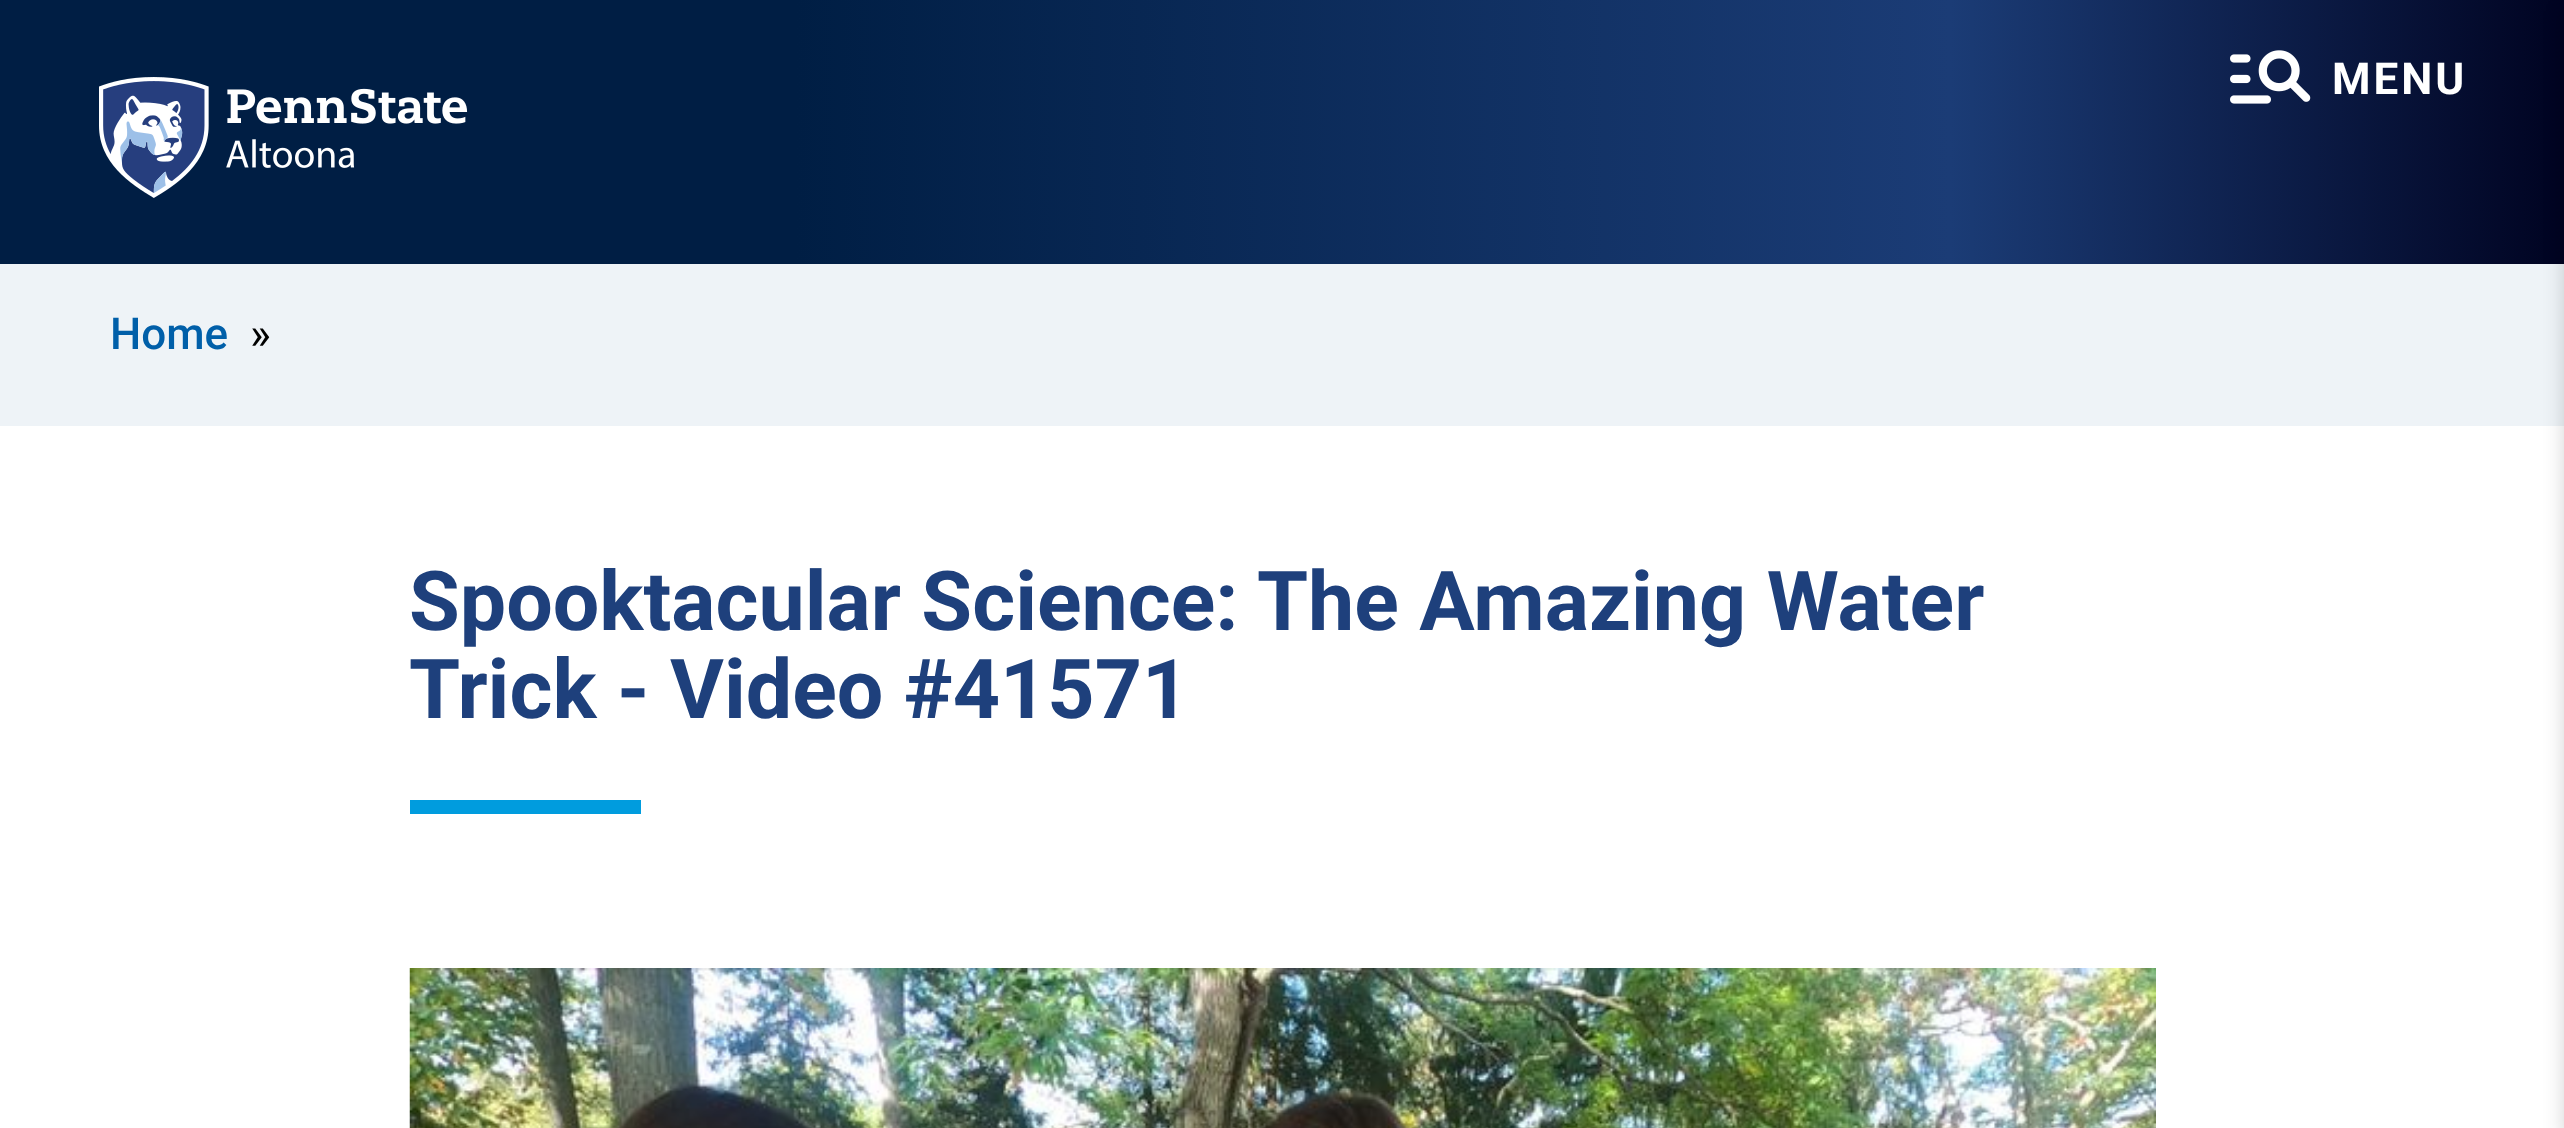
<svg xmlns="http://www.w3.org/2000/svg" xmlns:xlink="http://www.w3.org/1999/xlink" width="2564" height="1128" viewBox="0 0 2564 1128">
<style>
.cls-1{font:bold 44px Roboto;letter-spacing:3px;fill:#ffffff}
.cls-2{font:500 44px Roboto;fill:#005fa9}
.cls-3{font:44px Roboto;fill:#000000}
.cls-4{font:bold 82.5px Roboto;fill:#1e407c}
</style>
<defs>
<linearGradient id="g1" gradientUnits="userSpaceOnUse" x1="0" y1="132" x2="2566" y2="132"><stop offset="0" stop-color="#001e44"/><stop offset="0.31" stop-color="#001e44"/><stop offset="0.76" stop-color="#1b3c76"/><stop offset="1" stop-color="#000321"/></linearGradient>
</defs>
<rect width="100%" height="100%" fill="#ffffff"/>
<rect fill="url(#g1)" x="0" y="0" width="2564" height="264"/>
<image xlink:href="image0.png" x="99" y="77" width="369" height="121"/>
<image xlink:href="image1.png" x="2230" y="50" width="81" height="54"/>
<rect fill="#eef3f7" x="0" y="264" width="2564" height="162"/>
<rect fill="#000000" fill-opacity="0.2" filter="blur(11px)" x="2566" y="11" width="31" height="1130"/>
<rect fill="#009cde" x="410" y="800" width="231" height="14"/>
<image xlink:href="image2.png" x="409" y="968" width="1747" height="160"/>
<text class="cls-1" x="2332" y="94">MENU</text>
<text class="cls-2" x="110" y="349">Home</text>
<text class="cls-3" x="250" y="349">»</text>
<text class="cls-4"><tspan x="409" y="630">Spooktacular Science: The Amazing Water</tspan><tspan x="409" y="718">Trick - Video #41571</tspan></text>
</svg>
